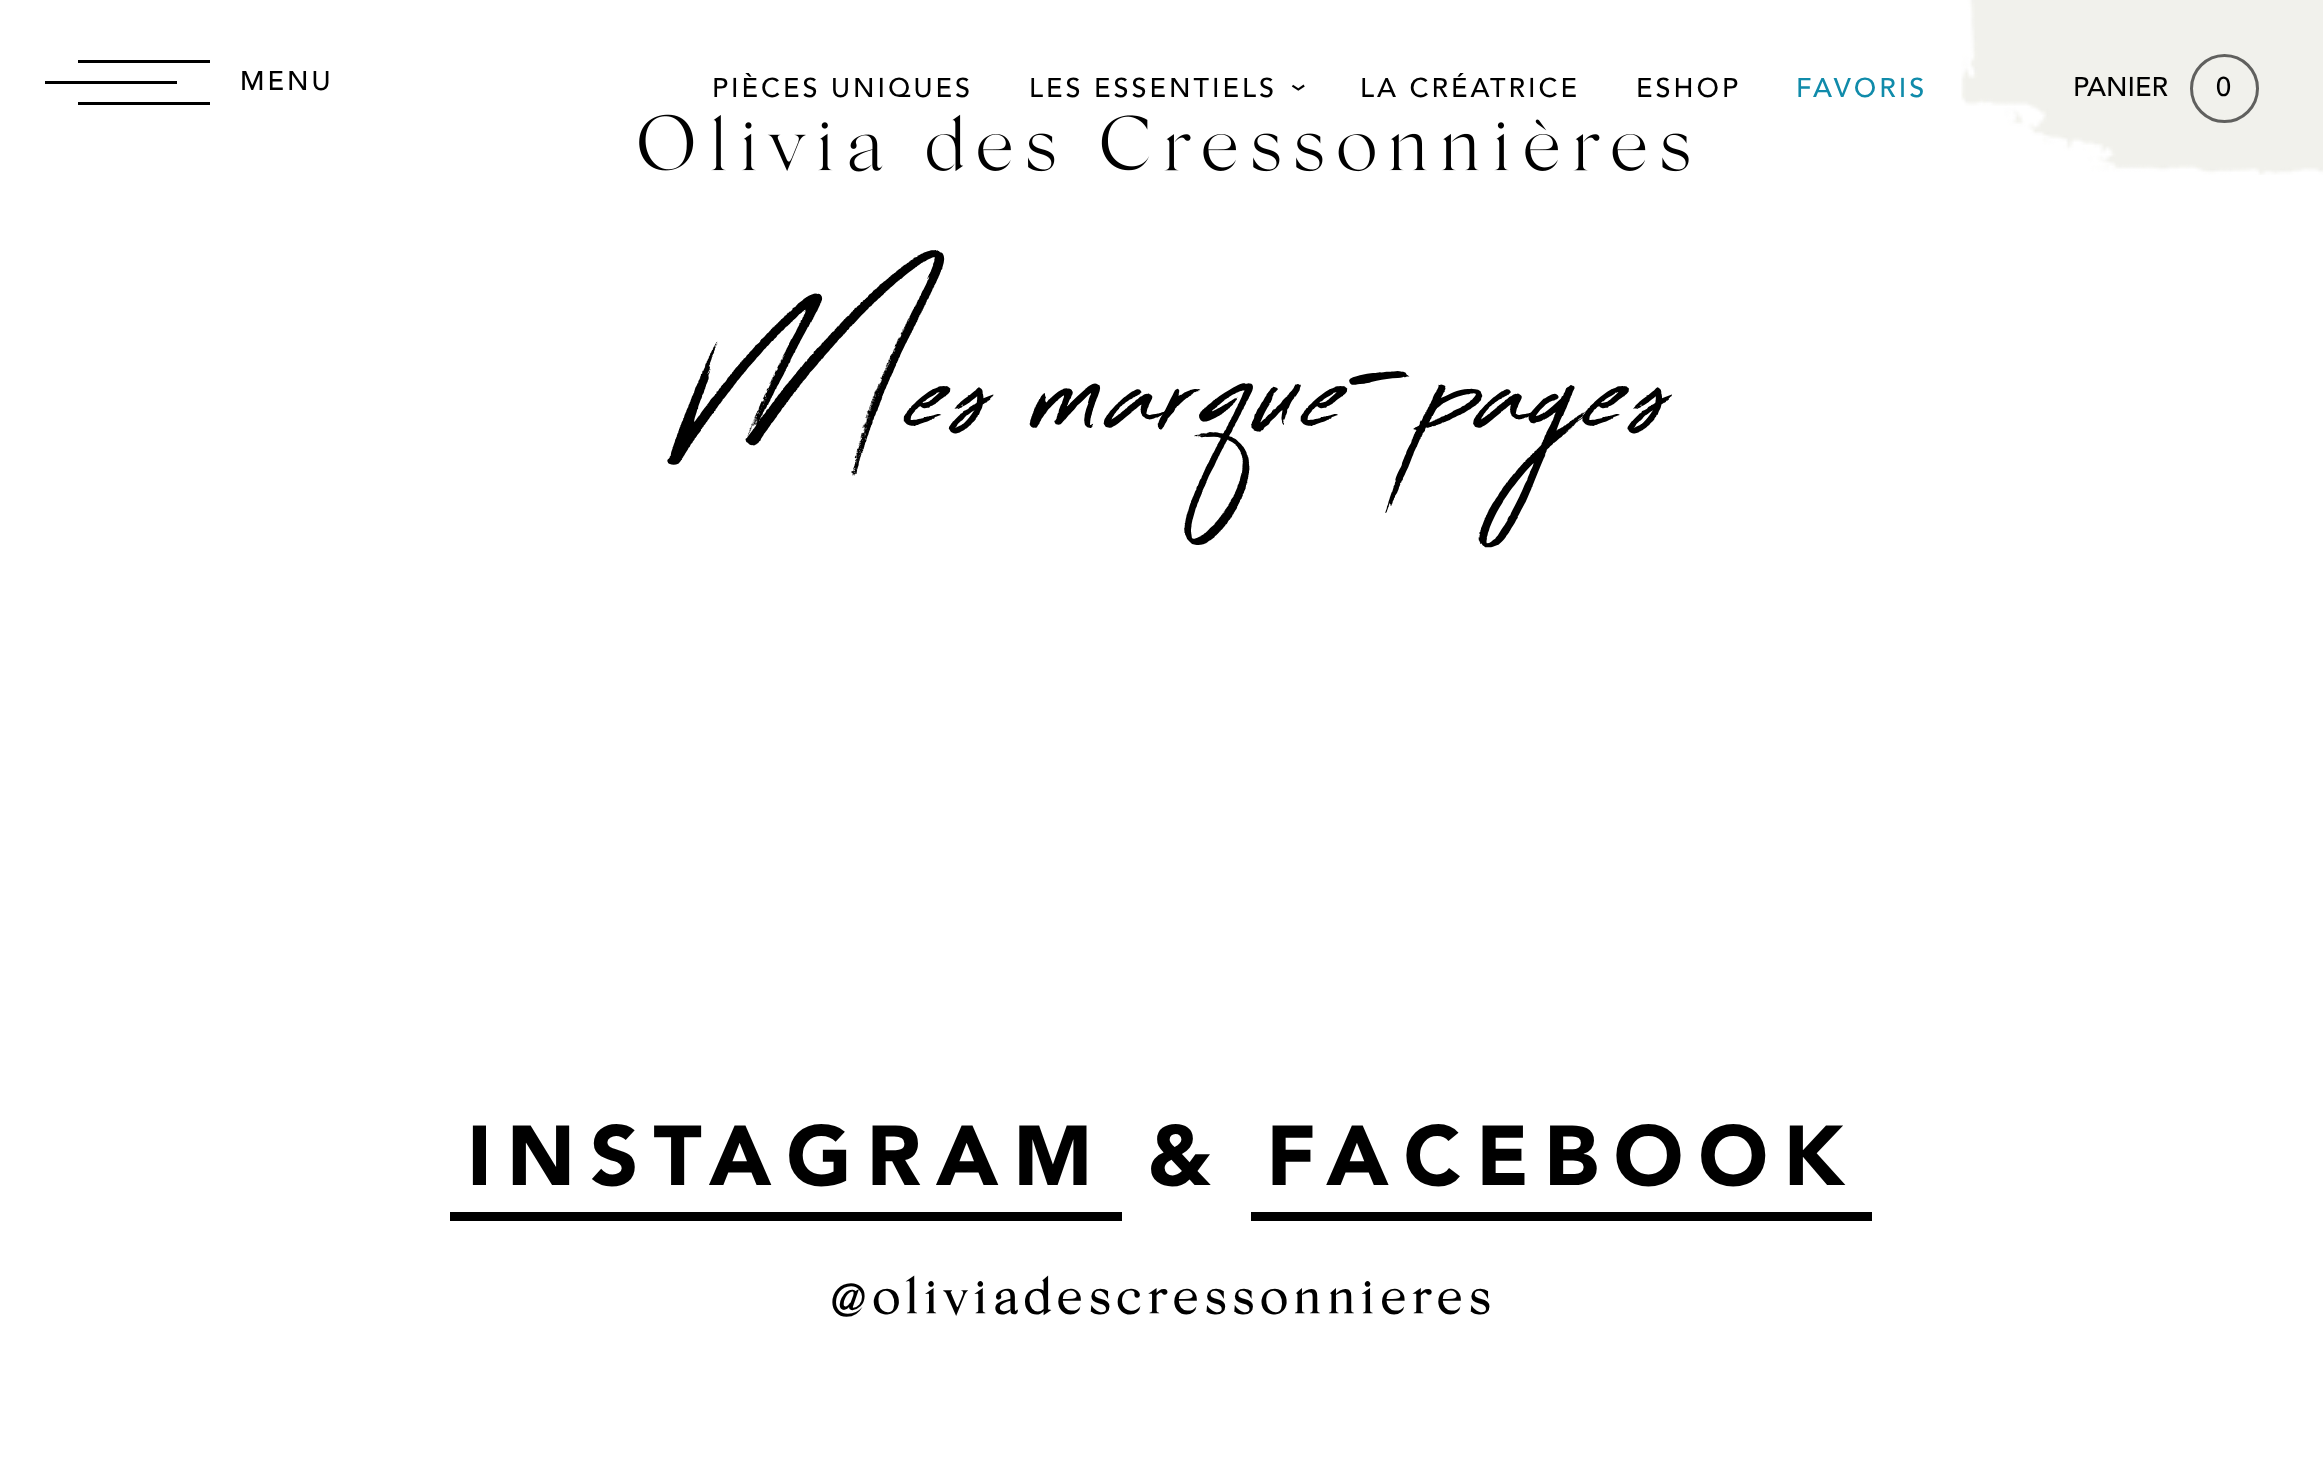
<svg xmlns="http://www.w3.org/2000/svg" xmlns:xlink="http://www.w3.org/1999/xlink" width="2323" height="1458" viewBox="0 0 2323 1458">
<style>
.cls-1{font:500 27px Avenir;letter-spacing:3px;fill:#000000}
.cls-2{font:500 30px Avenir;letter-spacing:3px;fill:#000000}
.cls-3{font:500 27px Avenir;letter-spacing:3px;fill:#108baa}
.cls-4{font:500 27px Avenir;fill:#000000}
.cls-5{font:100 261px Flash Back;letter-spacing:3px;fill:#000000}
.cls-6{font:900 84px Avenir;letter-spacing:15px;fill:#000000}
.cls-7{font:bold 51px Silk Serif;letter-spacing:6px;fill:#000000}
</style>
<rect width="100%" height="100%" fill="#ffffff"/>
<rect fill="#000000" x="45" y="81" width="132" height="3"/>
<rect fill="#000000" x="78" y="60" width="132" height="3"/>
<rect fill="#000000" x="78" y="102" width="132" height="3"/>
<image xlink:href="image0.png" x="1961" y="0" width="362" height="175"/>
<circle fill="none" stroke="#60605e" stroke-width="3" cx="2224.5" cy="88.5" r="33"/>
<image xlink:href="image1.png" x="639" y="114" width="1050" height="58"/>
<rect fill="#000000" x="450" y="1212" width="672" height="9"/>
<rect fill="#000000" x="1251" y="1212" width="621" height="9"/>
<text class="cls-1" x="240" y="90">MENU</text>
<text class="cls-1" x="712" y="97">PIÈCES UNIQUES</text>
<text class="cls-1" x="1029" y="97">LES ESSENTIELS</text>
<text class="cls-2" x="1291" y="83" transform="rotate(90 1291 83)">›</text>
<text class="cls-1" x="1360" y="97">LA CRÉATRICE</text>
<text class="cls-1" x="1636" y="97">ESHOP</text>
<text class="cls-3" x="1796" y="97">FAVORIS</text>
<text class="cls-4" x="2073" y="96">PANIER</text>
<text class="cls-4" x="2216" y="96">0</text>
<text class="cls-5" x="656" y="426">Mes marque-pages</text>
<text class="cls-6" x="467" y="1185">INSTAGRAM &amp; FACEBOOK</text>
<text class="cls-7" x="830" y="1314">@oliviadescressonnieres</text>
</svg>
